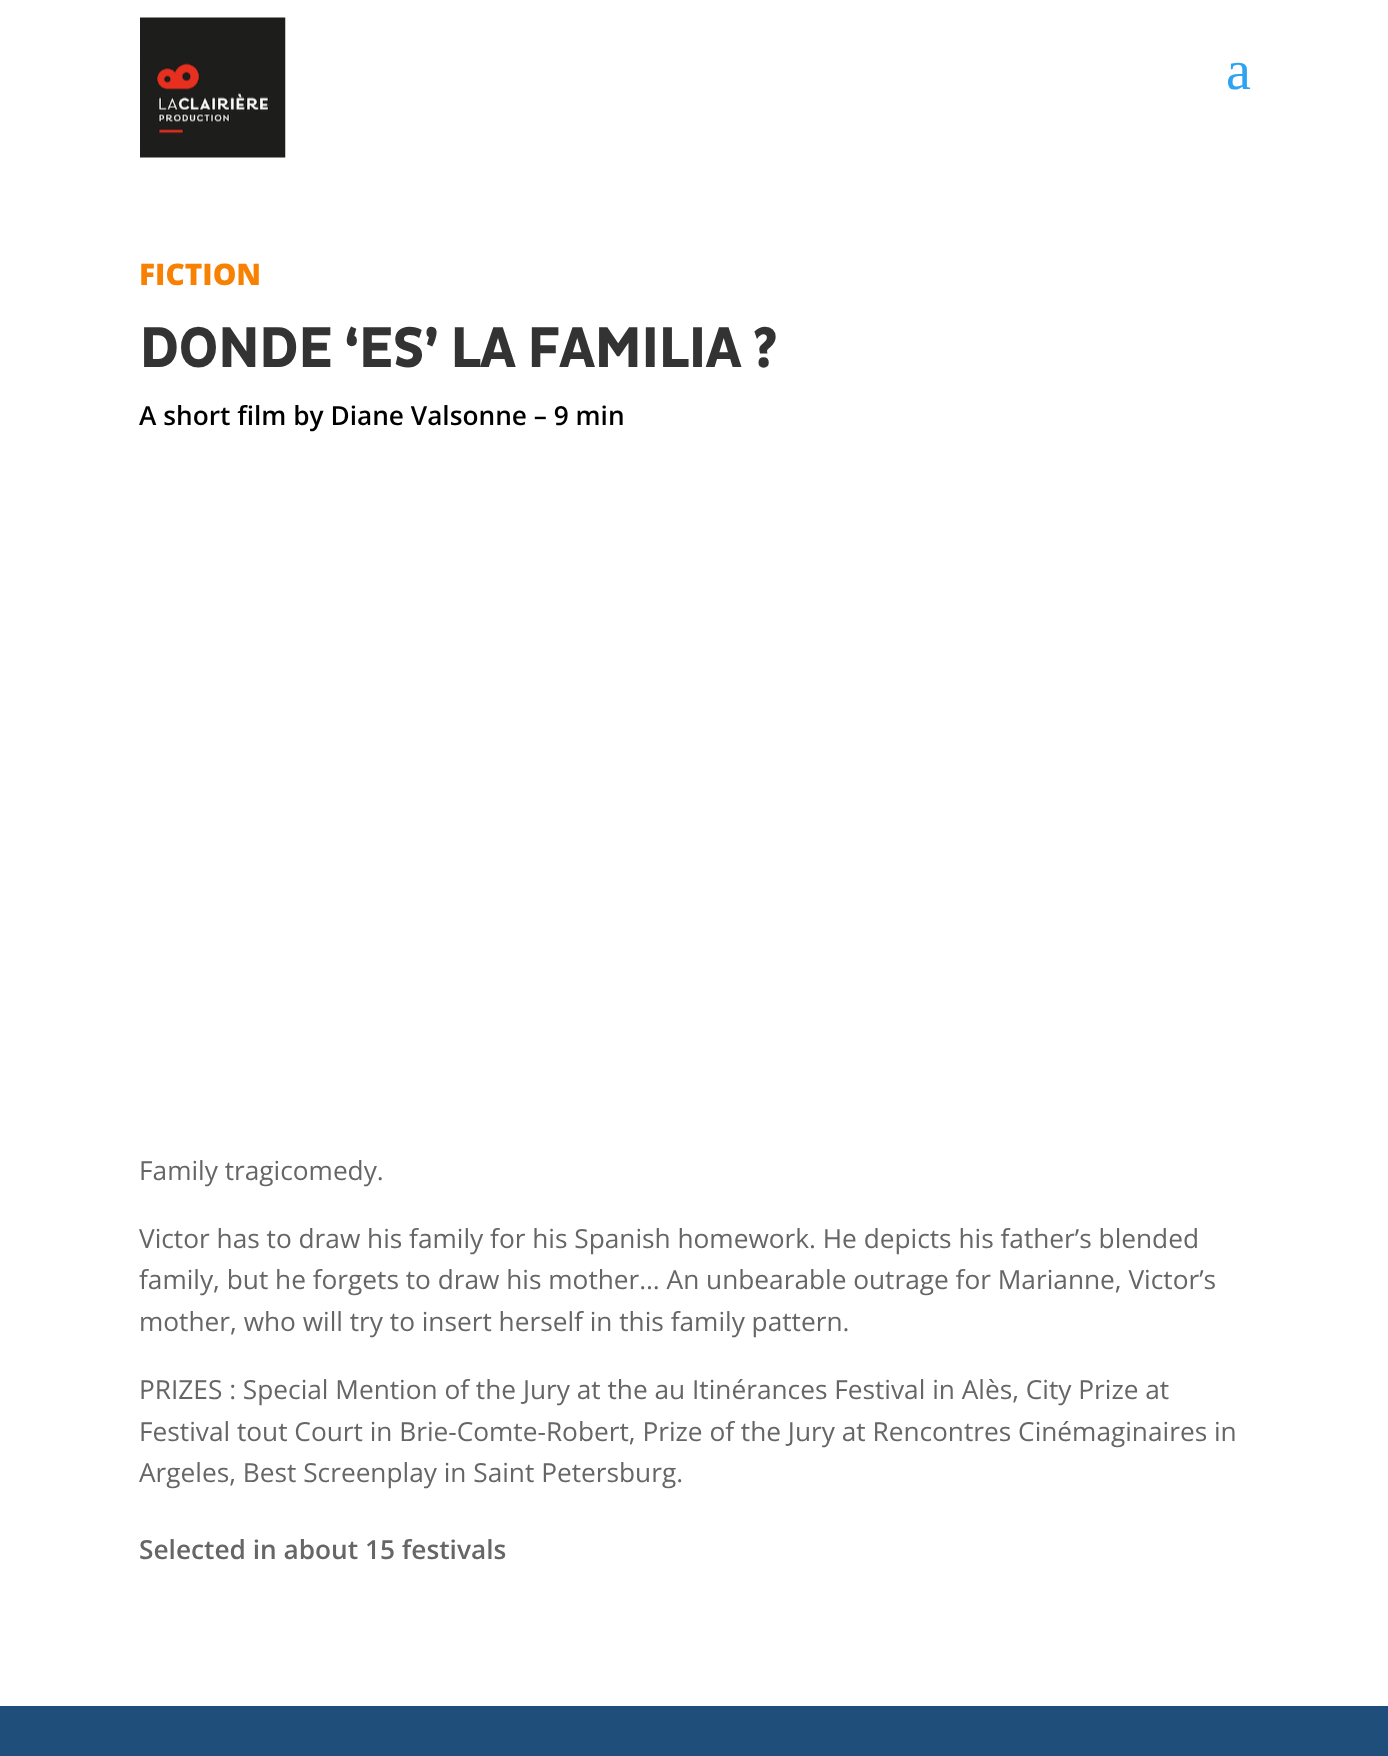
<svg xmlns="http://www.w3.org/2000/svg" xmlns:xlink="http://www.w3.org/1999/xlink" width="1388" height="1756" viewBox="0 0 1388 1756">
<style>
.cls-1{font:56px Liberation Serif;fill:#2ea3f2}
.cls-2{font:800 29.75px Open Sans;fill:#f88002}
.cls-3{font:bold 56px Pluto;fill:#333333}
.cls-4{font:600 26.25px Open Sans;fill:#000000}
.cls-5{font:26.25px Open Sans;fill:#666666}
.cls-6{font:600 26.25px Open Sans;fill:#666666}
</style>
<rect width="100%" height="100%" fill="#ffffff"/>
<image xlink:href="image0.png" x="140" y="17" width="146" height="141"/>
<rect fill="#204e7b" x="0" y="1706" width="1388" height="50"/>
<text class="cls-1" x="1226" y="89">a</text>
<text class="cls-2" x="139" y="285">FICTION</text>
<text class="cls-3" x="139" y="367">DONDE ‘ES’ LA FAMILIA ?</text>
<text class="cls-4" x="139" y="425">A short film by Diane Valsonne – 9 min</text>
<text class="cls-5" x="139" y="1180">Family tragicomedy.</text>
<text class="cls-5"><tspan x="139" y="1248">Victor has to draw his family for his Spanish homework. He depicts his father’s blended</tspan><tspan x="139" y="1289">family, but he forgets to draw his mother… An unbearable outrage for Marianne, Victor’s</tspan><tspan x="139" y="1331">mother, who will try to insert herself in this family pattern.</tspan></text>
<text class="cls-5"><tspan x="139" y="1399">PRIZES : Special Mention of the Jury at the au Itinérances Festival in Alès, City Prize at</tspan><tspan x="139" y="1441">Festival tout Court in Brie-Comte-Robert, Prize of the Jury at Rencontres Cinémaginaires in</tspan><tspan x="139" y="1482">Argeles, Best Screenplay in Saint Petersburg.</tspan></text>
<text class="cls-6" x="139" y="1559">Selected in about 15 festivals</text>
</svg>
